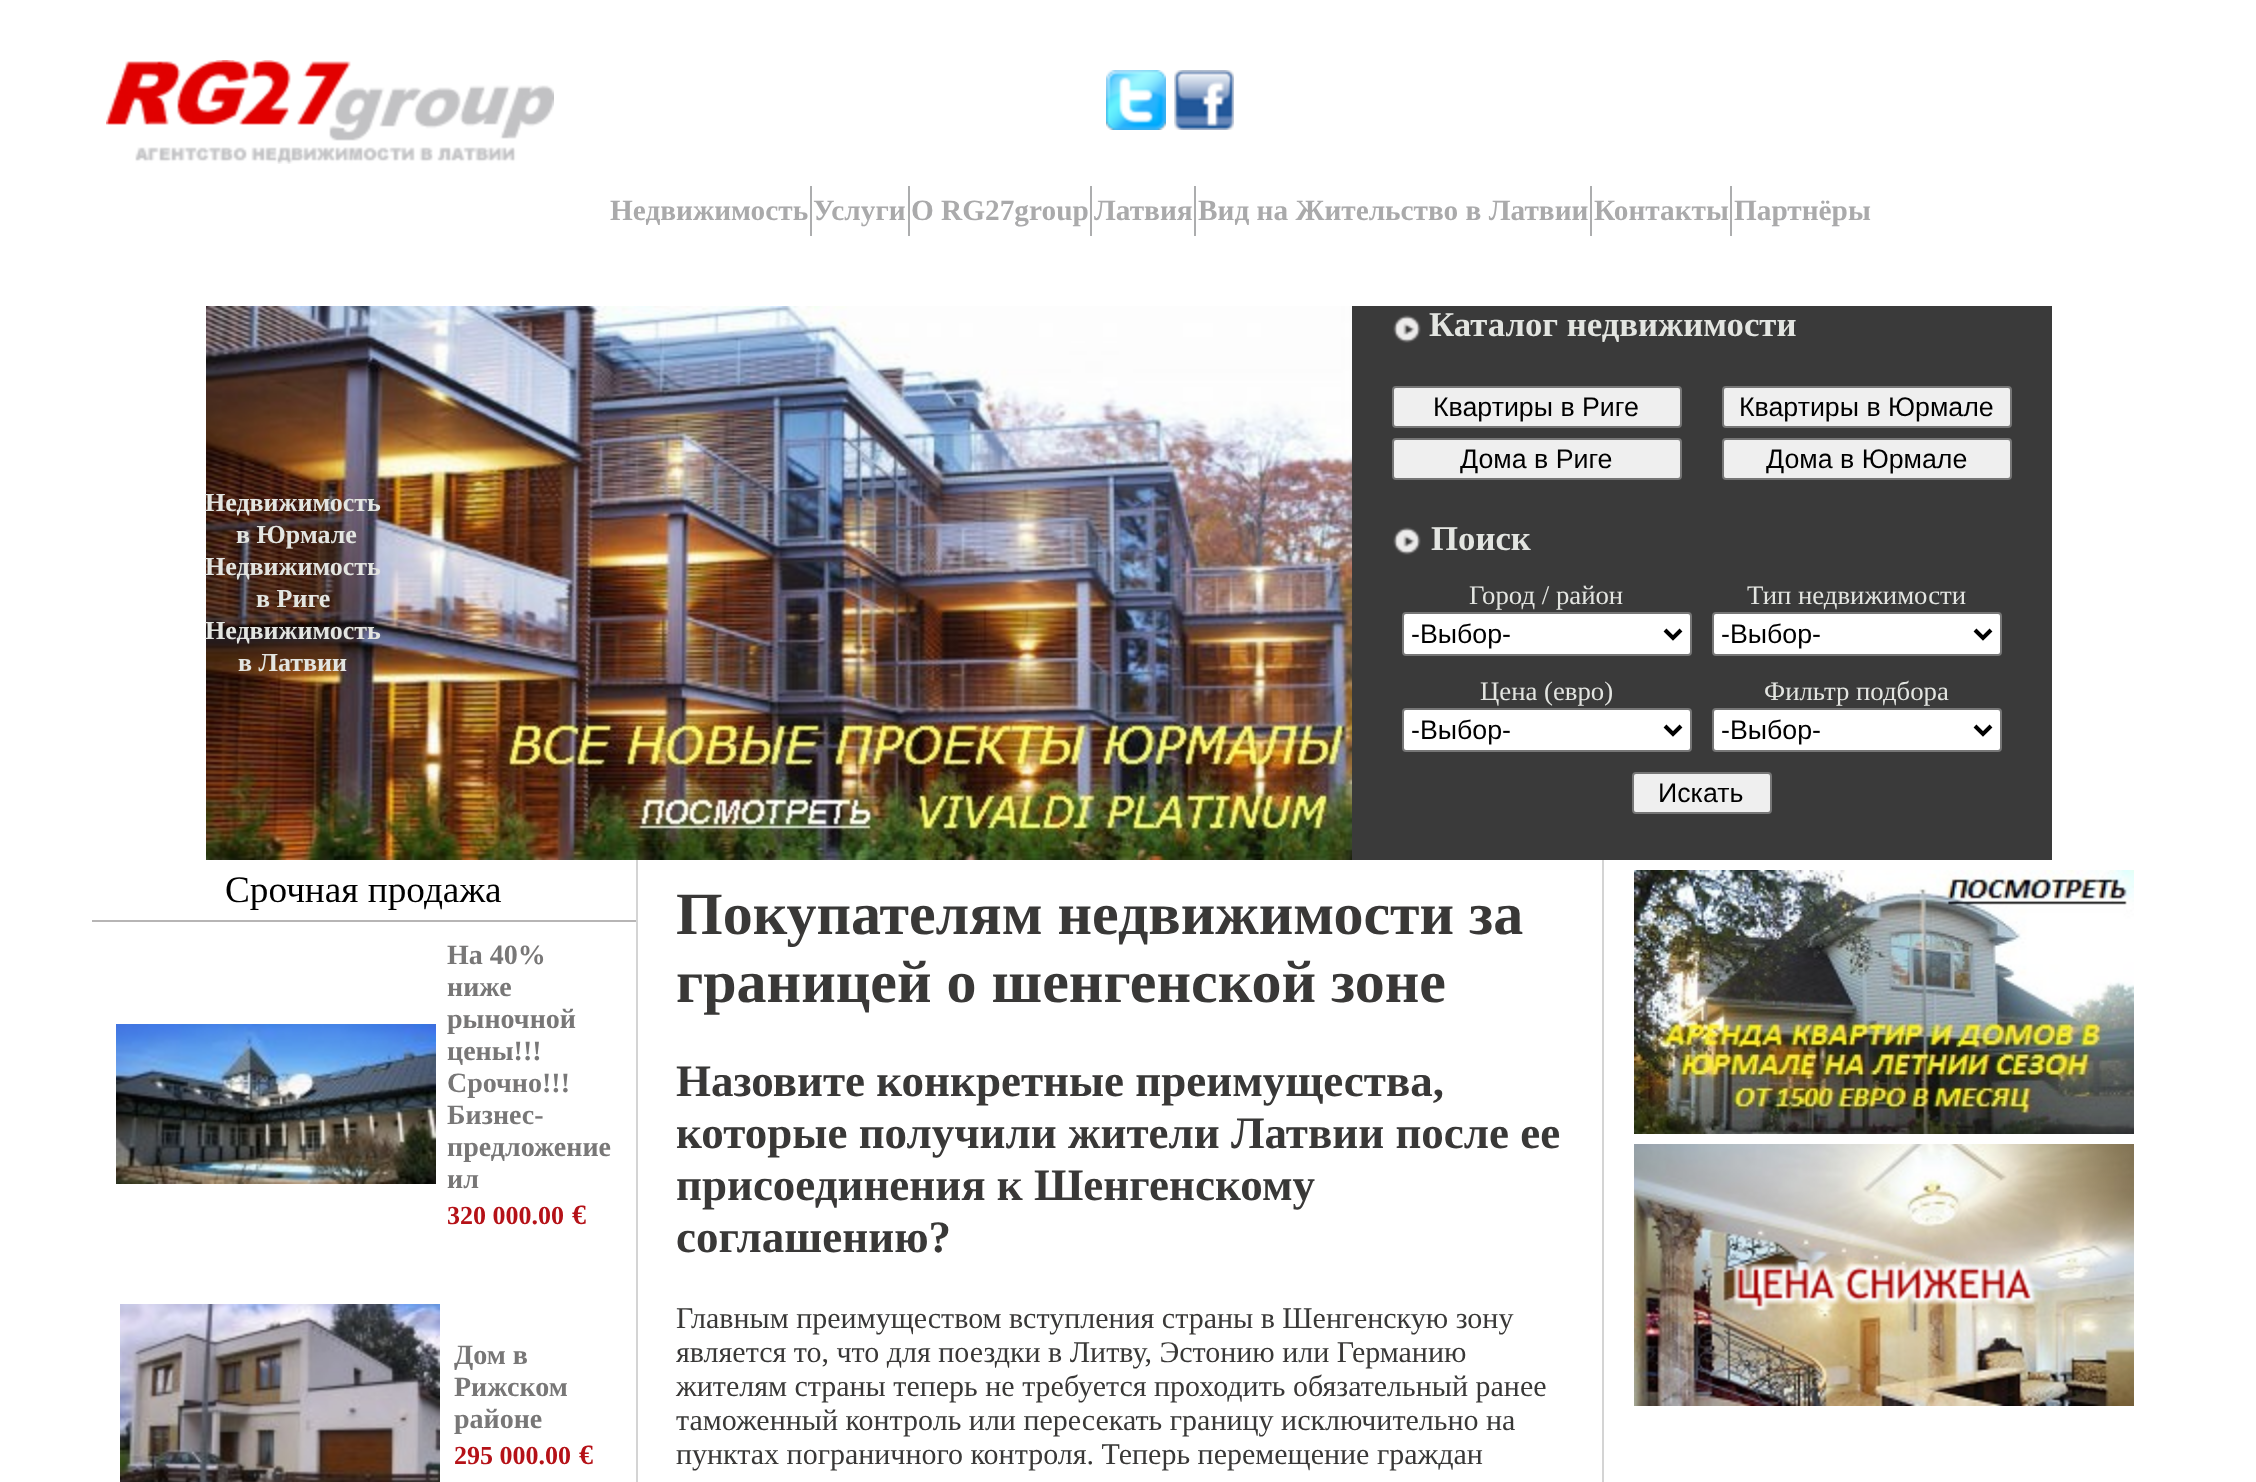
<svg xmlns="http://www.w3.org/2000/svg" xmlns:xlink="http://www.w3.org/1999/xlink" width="2256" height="1482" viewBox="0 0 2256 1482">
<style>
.cls-1{font:bold 29.3px Liberation Serif;fill:#aaaaab}
.cls-2{font:bold 26px Liberation Serif;fill:#e3e5e1}
.cls-3{font:bold 34.75px Liberation Serif;fill:#e3e5e1}
.cls-4{font:26.75px Liberation Sans;fill:#000000}
.cls-5{font:26.75px Liberation Serif;fill:#e3e5e1}
.cls-6{font:37.25px Liberation Serif;fill:#000000}
.cls-7{font:bold 28px Liberation Serif;fill:#787777}
.cls-8{font:bold 26px Liberation Serif;fill:#b51117}
.cls-9{font:bold 28px Liberation Serif;fill:#b51117}
.cls-10{font:bold 60px Liberation Serif;fill:#393837}
.cls-11{font:bold 45px Liberation Serif;fill:#393837}
.cls-12{font:30px Liberation Serif;fill:#393837}
</style>
<rect width="100%" height="100%" fill="#ffffff"/>
<image xlink:href="image0.png" x="106" y="60" width="448" height="104"/>
<image xlink:href="image1.png" x="1106" y="70" width="60" height="60"/>
<image xlink:href="image2.png" x="1174" y="70" width="60" height="60"/>
<rect fill="#acadae" x="810" y="186" width="2" height="50"/>
<rect fill="#acadae" x="908" y="186" width="2" height="50"/>
<rect fill="#acadae" x="1090" y="186" width="2" height="50"/>
<rect fill="#acadae" x="1194" y="186" width="2" height="50"/>
<rect fill="#acadae" x="1590" y="186" width="2" height="50"/>
<rect fill="#acadae" x="1730" y="186" width="2" height="50"/>
<image xlink:href="image3.png" x="206" y="306" width="1146" height="554"/>
<rect fill="#3a3a3a" x="1352" y="306" width="700" height="554"/>
<image xlink:href="image4.png" x="1393" y="315" width="28" height="28"/>
<rect fill="#efefef" stroke="#767676" stroke-width="2" x="1393" y="387" width="288" height="40" rx="3"/>
<rect fill="#efefef" stroke="#767676" stroke-width="2" x="1723" y="387" width="288" height="40" rx="3"/>
<rect fill="#efefef" stroke="#767676" stroke-width="2" x="1393" y="439" width="288" height="40" rx="3"/>
<rect fill="#efefef" stroke="#767676" stroke-width="2" x="1723" y="439" width="288" height="40" rx="3"/>
<image xlink:href="image4.png" x="1393" y="527" width="28" height="28"/>
<rect fill="#ffffff" stroke="#767676" stroke-width="2" x="1403" y="613" width="288" height="42" rx="3"/>
<path fill="none" stroke="#000000" stroke-width="4" d="M1665 630L1673 638L1681 630"/>
<rect fill="#ffffff" stroke="#767676" stroke-width="2" x="1713" y="613" width="288" height="42" rx="3"/>
<path fill="none" stroke="#000000" stroke-width="4" d="M1975 630L1983 638L1991 630"/>
<rect fill="#ffffff" stroke="#767676" stroke-width="2" x="1403" y="709" width="288" height="42" rx="3"/>
<path fill="none" stroke="#000000" stroke-width="4" d="M1665 726L1673 734L1681 726"/>
<rect fill="#ffffff" stroke="#767676" stroke-width="2" x="1713" y="709" width="288" height="42" rx="3"/>
<path fill="none" stroke="#000000" stroke-width="4" d="M1975 726L1983 734L1991 726"/>
<rect fill="#efefef" stroke="#767676" stroke-width="2" x="1633" y="773" width="138" height="40" rx="3"/>
<rect fill="#b7b5b5" x="92" y="920" width="544" height="2"/>
<image xlink:href="image5.png" x="116" y="1024" width="320" height="160"/>
<image xlink:href="image6.png" x="120" y="1304" width="320" height="178"/>
<rect fill="#d4d4d4" x="636" y="860" width="2" height="622"/>
<rect fill="#d4d4d4" x="1602" y="860" width="2" height="622"/>
<image xlink:href="image7.png" x="1634" y="870" width="500" height="264"/>
<image xlink:href="image8.png" x="1634" y="1144" width="500" height="262"/>
<text class="cls-1" x="610" y="220">Недвижимость</text>
<text class="cls-1" x="813" y="220">Услуги</text>
<text class="cls-1" x="911" y="220">О RG27group</text>
<text class="cls-1" x="1094" y="220">Латвия</text>
<text class="cls-1" x="1198" y="220">Вид на Жительство в Латвии</text>
<text class="cls-1" x="1594" y="220">Контакты</text>
<text class="cls-1" x="1734" y="220">Партнёры</text>
<text class="cls-2" x="205" y="511">Недвижимость</text>
<text class="cls-2" x="236" y="543">в Юрмале</text>
<text class="cls-2" x="205" y="575">Недвижимость</text>
<text class="cls-2" x="256" y="607">в Риге</text>
<text class="cls-2" x="205" y="639">Недвижимость</text>
<text class="cls-2" x="238" y="671">в Латвии</text>
<text class="cls-3" x="1429" y="336">Каталог недвижимости</text>
<text class="cls-4" x="1433" y="416">Квартиры в Риге</text>
<text class="cls-4" x="1739" y="416">Квартиры в Юрмале</text>
<text class="cls-4" x="1460" y="468">Дома в Риге</text>
<text class="cls-4" x="1766" y="468">Дома в Юрмале</text>
<text class="cls-3" x="1431" y="550">Поиск</text>
<text class="cls-5" x="1469" y="604">Город / район</text>
<text class="cls-5" x="1747" y="604">Тип недвижимости</text>
<text class="cls-4" x="1411" y="643">-Выбор-</text>
<text class="cls-4" x="1721" y="643">-Выбор-</text>
<text class="cls-5" x="1480" y="700">Цена (евро)</text>
<text class="cls-5" x="1764" y="700">Фильтр подбора</text>
<text class="cls-4" x="1411" y="739">-Выбор-</text>
<text class="cls-4" x="1721" y="739">-Выбор-</text>
<text class="cls-4" x="1658" y="802">Искать</text>
<text class="cls-6" x="225" y="902">Срочная продажа</text>
<text class="cls-7"><tspan x="447" y="964">На 40%</tspan><tspan x="447" y="996">ниже</tspan><tspan x="447" y="1028">рыночной</tspan><tspan x="447" y="1060">цены!!!</tspan><tspan x="447" y="1092">Срочно!!!</tspan><tspan x="447" y="1124">Бизнес-</tspan><tspan x="447" y="1156">предложение</tspan><tspan x="447" y="1188">ил</tspan></text>
<text class="cls-8" x="447" y="1224">320 000.00</text>
<text class="cls-9" x="572" y="1224">€</text>
<text class="cls-7"><tspan x="454" y="1364">Дом в</tspan><tspan x="454" y="1396">Рижском</tspan><tspan x="454" y="1428">районе</tspan></text>
<text class="cls-8" x="454" y="1464">295 000.00</text>
<text class="cls-9" x="579" y="1464">€</text>
<text class="cls-10"><tspan x="676" y="934">Покупателям недвижимости за</tspan><tspan x="676" y="1002">границей о шенгенской зоне</tspan></text>
<text class="cls-11"><tspan x="676" y="1096">Назовите конкретные преимущества,</tspan><tspan x="676" y="1148">которые получили жители Латвии после ее</tspan><tspan x="676" y="1200">присоединения к Шенгенскому</tspan><tspan x="676" y="1252">соглашению?</tspan></text>
<text class="cls-12"><tspan x="676" y="1328">Главным преимуществом вступления страны в Шенгенскую зону</tspan><tspan x="676" y="1362">является то, что для поездки в Литву, Эстонию или Германию</tspan><tspan x="676" y="1396">жителям страны теперь не требуется проходить обязательный ранее</tspan><tspan x="676" y="1430">таможенный контроль или пересекать границу исключительно на</tspan><tspan x="676" y="1464">пунктах пограничного контроля. Теперь перемещение граждан</tspan></text>
</svg>
